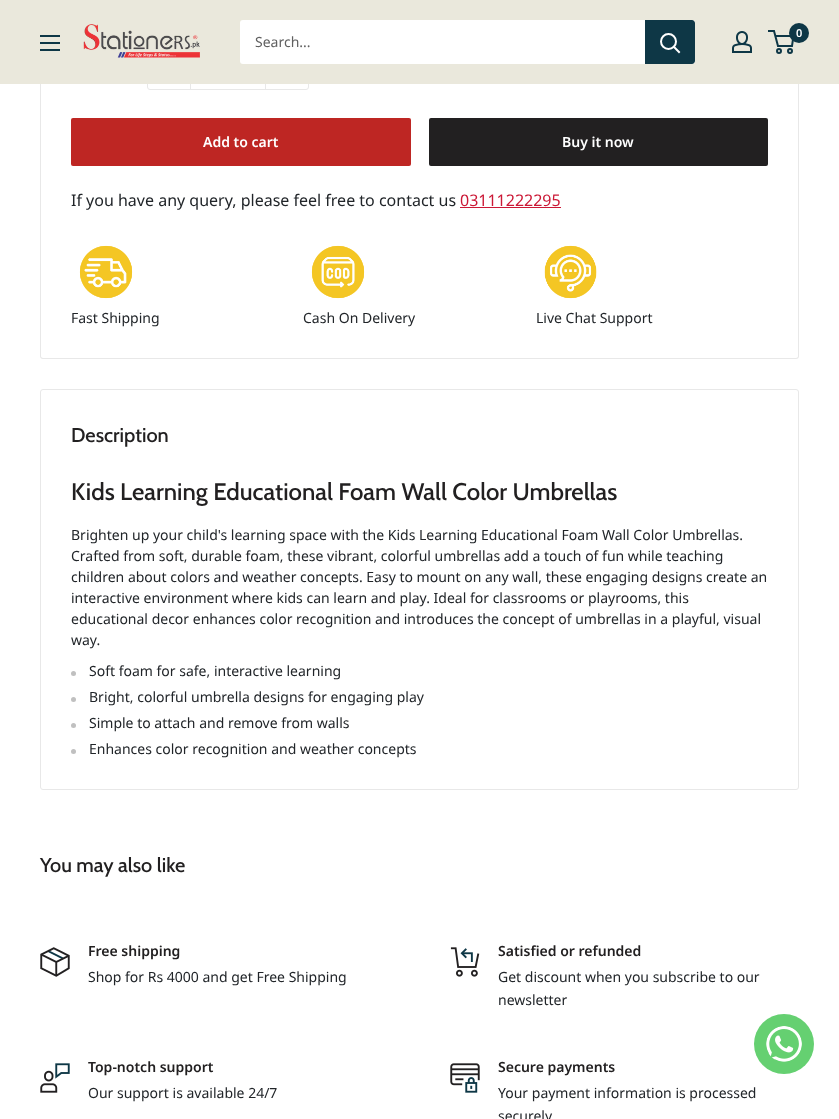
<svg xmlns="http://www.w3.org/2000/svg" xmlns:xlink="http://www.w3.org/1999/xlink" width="839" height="1119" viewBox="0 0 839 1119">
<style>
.cls-1{font:600 11px Noto Sans;fill:#ffffff}
.cls-2{font:14px Noto Sans;fill:#616161}
.cls-3{font:600 14px Noto Sans;fill:#ffffff}
.cls-4{font:16px Noto Sans;fill:#212529}
.cls-5{font:16px Noto Sans;fill:#cb1836}
.cls-6{font:14px Noto Sans;fill:#212529}
.cls-7{font:500 20px Cabin;fill:#222021}
.cls-8{font:500 24px Cabin;fill:#222021}
.cls-9{font:600 14px Noto Sans;fill:#222021}
</style>
<rect width="100%" height="100%" fill="#ffffff"/>
<path fill="#e8e8e8" fill-rule="evenodd" d="M43-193H796C798-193 799-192 799-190V356C799 358 798 359 796 359H43C41 359 40 358 40 356V-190C40-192 41-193 43-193ZM43-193H796C797-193 798-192 798-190V356C798 357 797 358 796 358H43C42 358 41 357 41 356V-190C41-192 42-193 43-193Z"/>
<rect fill="none" stroke="#e8e8e8" x="147.5" y="46.5" width="161" height="43" rx="2.5"/>
<rect fill="#eae8dc" x="0" y="0" width="839" height="84"/>
<image xlink:href="image0.png" x="83" y="24" width="117" height="34"/>
<image xlink:href="image1.png" x="732" y="31" width="20" height="22"/>
<circle fill="none" stroke="#0e3746" stroke-width="2" cx="779" cy="51" r="2"/>
<circle fill="none" stroke="#0e3746" stroke-width="2" cx="790" cy="51" r="2"/>
<path fill="none" stroke="#0e3746" stroke-width="2" d="M775.5 36H793.5L792 46H778L774 31H768"/>
<circle fill="#0e3746" cx="799" cy="33" r="10"/>
<image xlink:href="image2.png" x="40" y="35" width="20" height="16"/>
<rect fill="#ffffff" x="240" y="20" width="455" height="44" rx="3"/>
<path fill="#0e3746" d="M645 20H692C693.5 20 695 21.5 695 23V61C695 62.5 693.5 64 692 64H645Z"/>
<path fill="none" stroke="#ffffff" stroke-width="2" stroke-linecap="square" d="M679 52L674 47"/>
<circle fill="none" stroke="#ffffff" stroke-width="2" cx="668.5" cy="41.5" r="7.5"/>
<rect fill="#e8e8e8" x="265" y="84" width="1" height="5"/>
<rect fill="#e8e8e8" x="190" y="84" width="1" height="5"/>
<rect fill="#be2623" x="71" y="118" width="340" height="48" rx="2"/>
<rect fill="#222021" x="429" y="118" width="339" height="48" rx="2"/>
<rect fill="#cb1836" x="460" y="207" width="101" height="1"/>
<image xlink:href="image3.png" x="79" y="245" width="54" height="54"/>
<image xlink:href="image4.png" x="311" y="245" width="54" height="54"/>
<image xlink:href="image5.png" x="544" y="245" width="53" height="54"/>
<rect fill="none" stroke="#e8e8e8" x="40.5" y="389.5" width="758" height="400" rx="2.5"/>
<circle fill="#c0c0c0" cx="73.5" cy="673.5" r="2.5"/>
<circle fill="#c0c0c0" cx="73.5" cy="699.5" r="2.5"/>
<circle fill="#c0c0c0" cx="73.5" cy="725.5" r="2.5"/>
<circle fill="#c0c0c0" cx="73.5" cy="751.5" r="2.5"/>
<image xlink:href="image6.png" x="40" y="947" width="30" height="30"/>
<image xlink:href="image7.png" x="450" y="947" width="30" height="30"/>
<image xlink:href="image8.png" x="40" y="1063" width="30" height="30"/>
<image xlink:href="image9.png" x="450" y="1063" width="30" height="30"/>
<circle fill="#65d071" cx="784" cy="1044" r="30"/>
<image xlink:href="image10.png" x="766" y="1026" width="36" height="36"/>
<text class="cls-1" x="796" y="37">0</text>
<text class="cls-2" x="255" y="47">Search...</text>
<text class="cls-3" x="203" y="147">Add to cart</text>
<text class="cls-3" x="562" y="147">Buy it now</text>
<text class="cls-4" x="71" y="206">If you have any query, please feel free to contact us</text>
<text class="cls-5" x="460" y="206">03111222295</text>
<text class="cls-6" x="71" y="323">Fast Shipping</text>
<text class="cls-6" x="303" y="323">Cash On Delivery</text>
<text class="cls-6" x="536" y="323">Live Chat Support</text>
<text class="cls-7" x="71" y="442">Description</text>
<text class="cls-8" x="71" y="500">Kids Learning Educational Foam Wall Color Umbrellas</text>
<text class="cls-6"><tspan x="71" y="540">Brighten up your child's learning space with the Kids Learning Educational Foam Wall Color Umbrellas.</tspan><tspan x="71" y="561">Crafted from soft, durable foam, these vibrant, colorful umbrellas add a touch of fun while teaching</tspan><tspan x="71" y="582">children about colors and weather concepts. Easy to mount on any wall, these engaging designs create an</tspan><tspan x="71" y="603">interactive environment where kids can learn and play. Ideal for classrooms or playrooms, this</tspan><tspan x="71" y="624">educational decor enhances color recognition and introduces the concept of umbrellas in a playful, visual</tspan><tspan x="71" y="645">way.</tspan></text>
<text class="cls-6"><tspan x="89" y="676">Soft foam for safe, interactive learning</tspan><tspan x="89" y="702">Bright, colorful umbrella designs for engaging play</tspan><tspan x="89" y="728">Simple to attach and remove from walls</tspan><tspan x="89" y="754">Enhances color recognition and weather concepts</tspan></text>
<text class="cls-7" x="40" y="872">You may also like</text>
<text class="cls-9" x="88" y="956">Free shipping</text>
<text class="cls-6" x="88" y="982">Shop for Rs 4000 and get Free Shipping</text>
<text class="cls-9" x="498" y="956">Satisfied or refunded</text>
<text class="cls-6"><tspan x="498" y="982">Get discount when you subscribe to our</tspan><tspan x="498" y="1005">newsletter</tspan></text>
<text class="cls-9" x="88" y="1072">Top-notch support</text>
<text class="cls-6" x="88" y="1098">Our support is available 24/7</text>
<text class="cls-9" x="498" y="1072">Secure payments</text>
<text class="cls-6"><tspan x="498" y="1098">Your payment information is processed</tspan><tspan x="498" y="1121">securely</tspan></text>
</svg>
